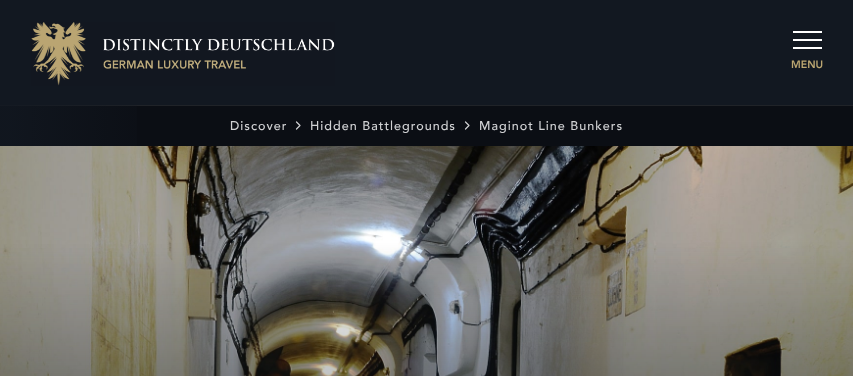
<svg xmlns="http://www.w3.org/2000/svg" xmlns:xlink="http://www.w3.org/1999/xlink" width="853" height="376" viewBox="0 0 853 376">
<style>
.cls-1{font:900 10.5px Avenir;fill:#bba671}
.cls-2{font:500 12.6px Avenir;letter-spacing:1px;fill:#d0d1d3}
</style>
<defs>
<linearGradient id="g1" gradientUnits="userSpaceOnUse" x1="171" y1="126" x2="0" y2="126"><stop offset="0" stop-color="#121821" stop-opacity="0"/><stop offset="0.95" stop-color="#121821" stop-opacity="0.8"/></linearGradient>
</defs>
<rect width="100%" height="100%" fill="#121821"/>
<rect fill="#0b0e14" x="0" y="106" width="853" height="40"/>
<image xlink:href="image0.png" x="31" y="22" width="304" height="64"/>
<rect fill="#ffffff" x="793" y="31" width="29" height="2"/>
<rect fill="#ffffff" x="793" y="39" width="29" height="2"/>
<rect fill="#ffffff" x="793" y="47" width="29" height="2"/>
<rect fill="#202328" x="0" y="105" width="853" height="1"/>
<rect fill="url(#g1)" x="0" y="105" width="137" height="41"/>
<path fill="none" stroke="#d0d1d3" stroke-width="1.2" stroke-linecap="round" stroke-linejoin="round" d="M296.5 122L300 125.5L296.5 129"/>
<path fill="none" stroke="#d0d1d3" stroke-width="1.2" stroke-linecap="round" stroke-linejoin="round" d="M465.5 122L469 125.5L465.5 129"/>
<image xlink:href="image1.png" x="0" y="146" width="853" height="230"/>
<text class="cls-1" x="791" y="68">MENU</text>
<text class="cls-2" x="230" y="130">Discover</text>
<text class="cls-2" x="310" y="130">Hidden Battlegrounds</text>
<text class="cls-2" x="479" y="130">Maginot Line Bunkers</text>
</svg>
